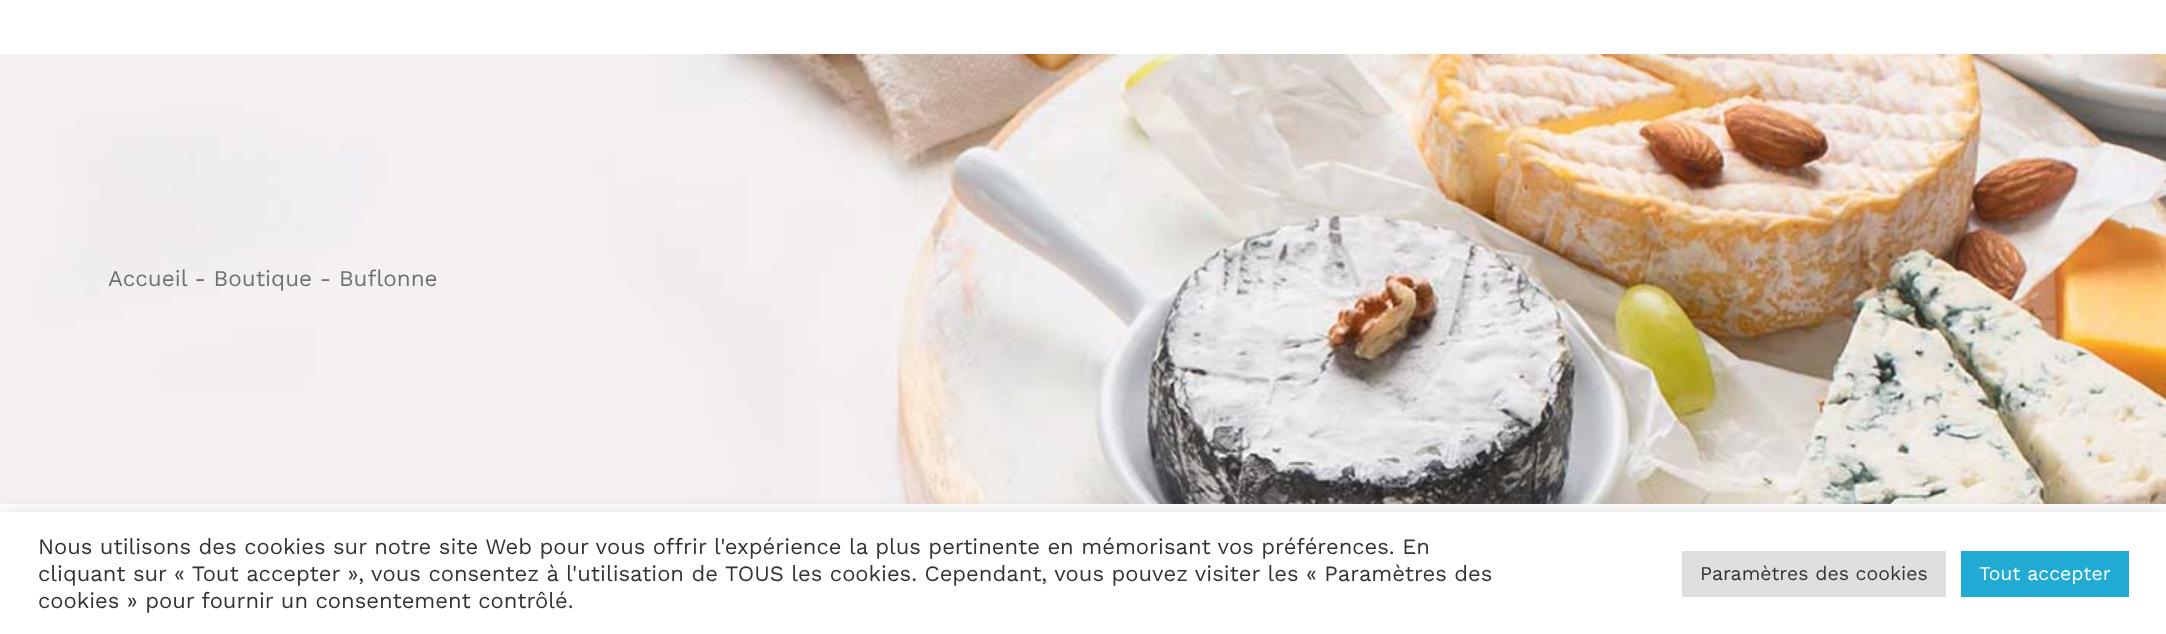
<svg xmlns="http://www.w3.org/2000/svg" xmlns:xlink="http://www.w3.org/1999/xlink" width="2166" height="634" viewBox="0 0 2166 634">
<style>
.cls-1{font:22.5px Work Sans;fill:#707070}
.cls-2{font:22px Work Sans;fill:#333333}
.cls-3{font:19.5px Work Sans;fill:#333333}
.cls-4{font:19.5px Work Sans;fill:#ffffff}
</style>
<rect width="100%" height="100%" fill="#ffffff"/>
<image xlink:href="image0.png" x="0" y="54" width="2166" height="450"/>
<rect fill="#acabab" fill-opacity="0.3" filter="blur(7.5px)" x="0" y="510" width="2166" height="123"/>
<rect fill="#ffffff" x="0" y="512" width="2166" height="122"/>
<rect fill="#dedfe0" x="1682" y="551" width="264" height="46"/>
<rect fill="#21aad3" x="1961" y="551" width="168" height="46"/>
<text class="cls-1" x="108" y="286">Accueil - Boutique - Buflonne</text>
<text class="cls-2"><tspan x="38" y="554">Nous utilisons des cookies sur notre site Web pour vous offrir l'expérience la plus pertinente en mémorisant vos préférences. En</tspan><tspan x="38" y="581">cliquant sur « Tout accepter », vous consentez à l'utilisation de TOUS les cookies. Cependant, vous pouvez visiter les « Paramètres des</tspan><tspan x="38" y="608">cookies » pour fournir un consentement contrôlé.</tspan></text>
<text class="cls-3" x="1700" y="580">Paramètres des cookies</text>
<text class="cls-4" x="1979" y="580">Tout accepter</text>
</svg>
